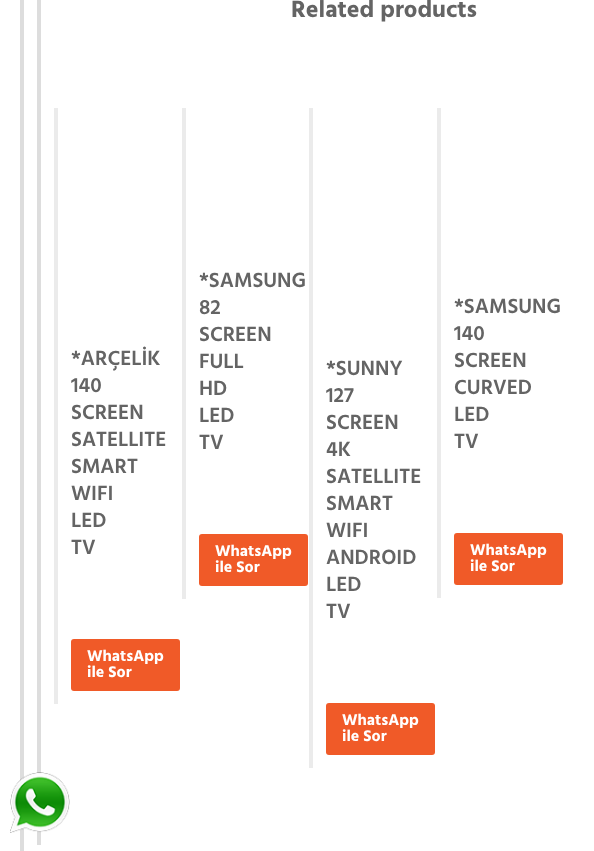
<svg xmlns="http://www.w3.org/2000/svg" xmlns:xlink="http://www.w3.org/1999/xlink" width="594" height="851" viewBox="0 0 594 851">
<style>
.cls-1{font:bold 24px Hind;fill:#646464}
.cls-2{font:600 21px Hind;fill:#646464}
.cls-3{font:bold 16px Hind;fill:#ffffff}
</style>
<rect width="100%" height="100%" fill="#ffffff"/>
<rect fill="#dddddd" x="20" y="0" width="4" height="851"/>
<rect fill="#dddddd" x="37" y="0" width="4" height="845"/>
<rect fill="#ebebeb" x="54" y="108" width="4" height="596"/>
<rect fill="#f05a28" x="71" y="639" width="109" height="52" rx="3"/>
<rect fill="#ebebeb" x="182" y="108" width="4" height="491"/>
<rect fill="#f05a28" x="199" y="534" width="109" height="52" rx="3"/>
<rect fill="#ebebeb" x="309" y="108" width="4" height="660"/>
<rect fill="#f05a28" x="326" y="703" width="109" height="52" rx="3"/>
<rect fill="#ebebeb" x="437" y="108" width="4" height="490"/>
<rect fill="#f05a28" x="454" y="533" width="109" height="52" rx="3"/>
<image xlink:href="image0.png" x="10" y="772" width="60" height="61"/>
<text class="cls-1" x="291" y="17">Related products</text>
<text class="cls-2"><tspan x="71" y="365">*ARÇELİK</tspan><tspan x="71" y="392">140</tspan><tspan x="71" y="419">SCREEN</tspan><tspan x="71" y="446">SATELLITE</tspan><tspan x="71" y="473">SMART</tspan><tspan x="71" y="500">WIFI</tspan><tspan x="71" y="527">LED</tspan><tspan x="71" y="554">TV</tspan></text>
<text class="cls-3"><tspan x="87" y="661">WhatsApp</tspan><tspan x="87" y="677">ile Sor</tspan></text>
<text class="cls-2"><tspan x="199" y="287">*SAMSUNG</tspan><tspan x="199" y="314">82</tspan><tspan x="199" y="341">SCREEN</tspan><tspan x="199" y="368">FULL</tspan><tspan x="199" y="395">HD</tspan><tspan x="199" y="422">LED</tspan><tspan x="199" y="449">TV</tspan></text>
<text class="cls-3"><tspan x="215" y="556">WhatsApp</tspan><tspan x="215" y="572">ile Sor</tspan></text>
<text class="cls-2"><tspan x="326" y="375">*SUNNY</tspan><tspan x="326" y="402">127</tspan><tspan x="326" y="429">SCREEN</tspan><tspan x="326" y="456">4K</tspan><tspan x="326" y="483">SATELLITE</tspan><tspan x="326" y="510">SMART</tspan><tspan x="326" y="537">WIFI</tspan><tspan x="326" y="564">ANDROID</tspan><tspan x="326" y="591">LED</tspan><tspan x="326" y="618">TV</tspan></text>
<text class="cls-3"><tspan x="342" y="725">WhatsApp</tspan><tspan x="342" y="741">ile Sor</tspan></text>
<text class="cls-2"><tspan x="454" y="313">*SAMSUNG</tspan><tspan x="454" y="340">140</tspan><tspan x="454" y="367">SCREEN</tspan><tspan x="454" y="394">CURVED</tspan><tspan x="454" y="421">LED</tspan><tspan x="454" y="448">TV</tspan></text>
<text class="cls-3"><tspan x="470" y="555">WhatsApp</tspan><tspan x="470" y="571">ile Sor</tspan></text>
</svg>
